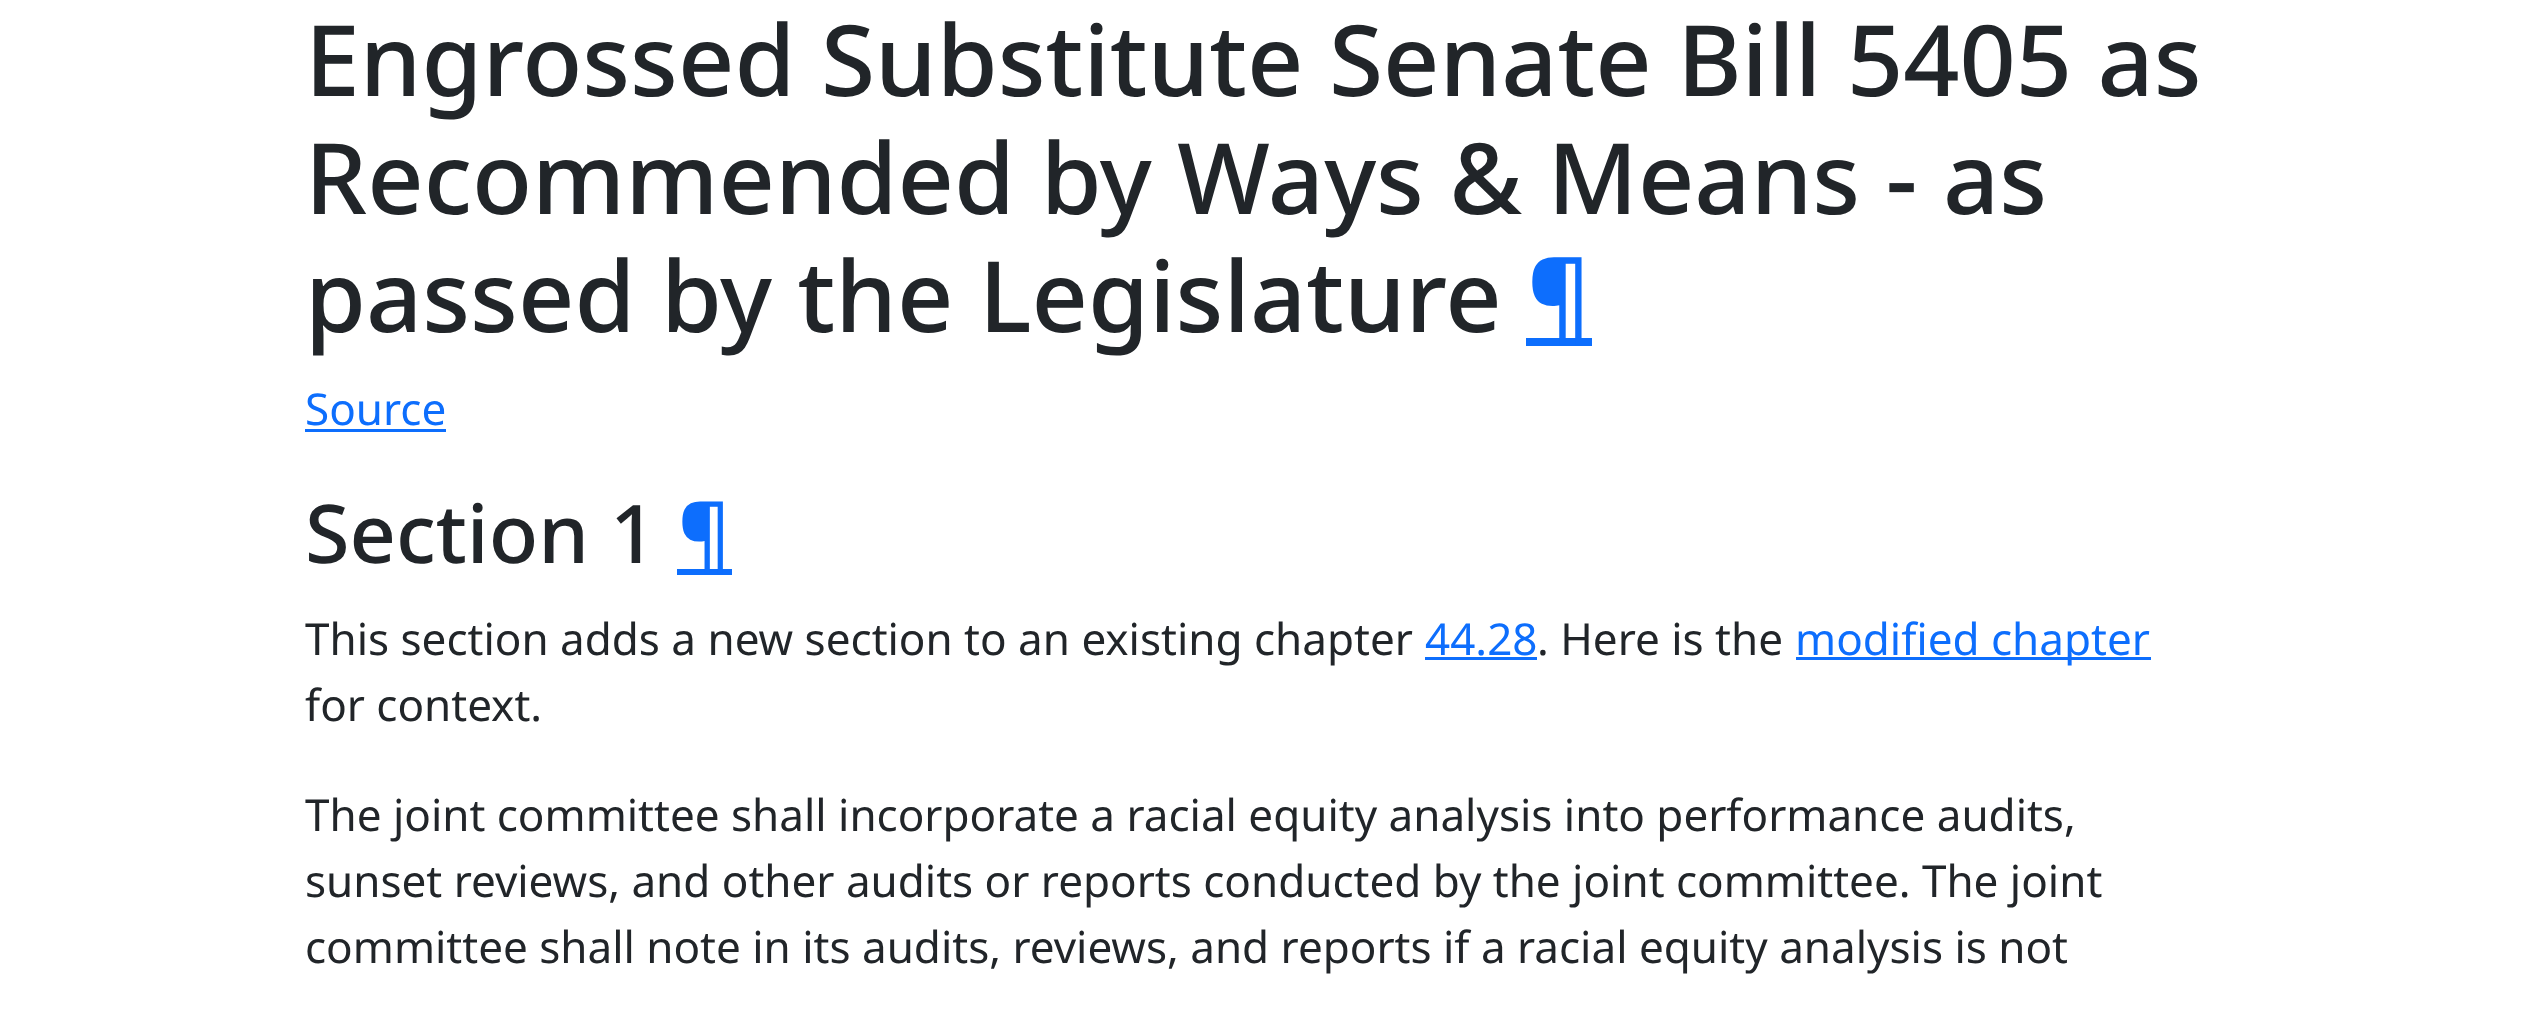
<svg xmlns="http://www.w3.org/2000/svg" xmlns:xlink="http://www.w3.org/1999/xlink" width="2522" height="1011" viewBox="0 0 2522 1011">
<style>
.cls-1{font:500 98.4px Noto Sans;fill:#212529}
.cls-2{font:500 98.4px Noto Sans;fill:#0d6efd}
.cls-3{font:44px Noto Sans;fill:#0d6efd}
.cls-4{font:500 81px Noto Sans;fill:#212529}
.cls-5{font:500 81px Noto Sans;fill:#0d6efd}
.cls-6{font:44px Noto Sans;fill:#212529}
</style>
<rect width="100%" height="100%" fill="#ffffff"/>
<rect fill="#0d6efd" x="1526" y="338" width="66" height="8"/>
<rect fill="#0d6efd" x="305" y="429" width="141" height="3"/>
<rect fill="#0d6efd" x="677" y="569" width="55" height="6"/>
<rect fill="#0d6efd" x="1425" y="657" width="112" height="3"/>
<rect fill="#0d6efd" x="1796" y="657" width="355" height="3"/>
<text class="cls-1"><tspan x="305" y="96">Engrossed Substitute Senate Bill 5405 as</tspan><tspan x="305" y="214">Recommended by Ways &amp; Means - as</tspan><tspan x="305" y="332">passed by the Legislature</tspan></text>
<text class="cls-2" x="1527" y="332">¶</text>
<text class="cls-3" x="305" y="425">Source</text>
<text class="cls-4" x="305" y="563">Section 1</text>
<text class="cls-5" x="678" y="563">¶</text>
<text class="cls-6" x="305" y="655">This section adds a new section to an existing chapter</text>
<text class="cls-3" x="1425" y="655">44.28</text>
<text class="cls-6" x="1537" y="655">. Here is the</text>
<text class="cls-3" x="1795" y="655">modified chapter</text>
<text class="cls-6" x="305" y="721">for context.</text>
<text class="cls-6"><tspan x="305" y="831">The joint committee shall incorporate a racial equity analysis into performance audits,</tspan><tspan x="305" y="897">sunset reviews, and other audits or reports conducted by the joint committee. The joint</tspan><tspan x="305" y="963">committee shall note in its audits, reviews, and reports if a racial equity analysis is not</tspan></text>
</svg>
